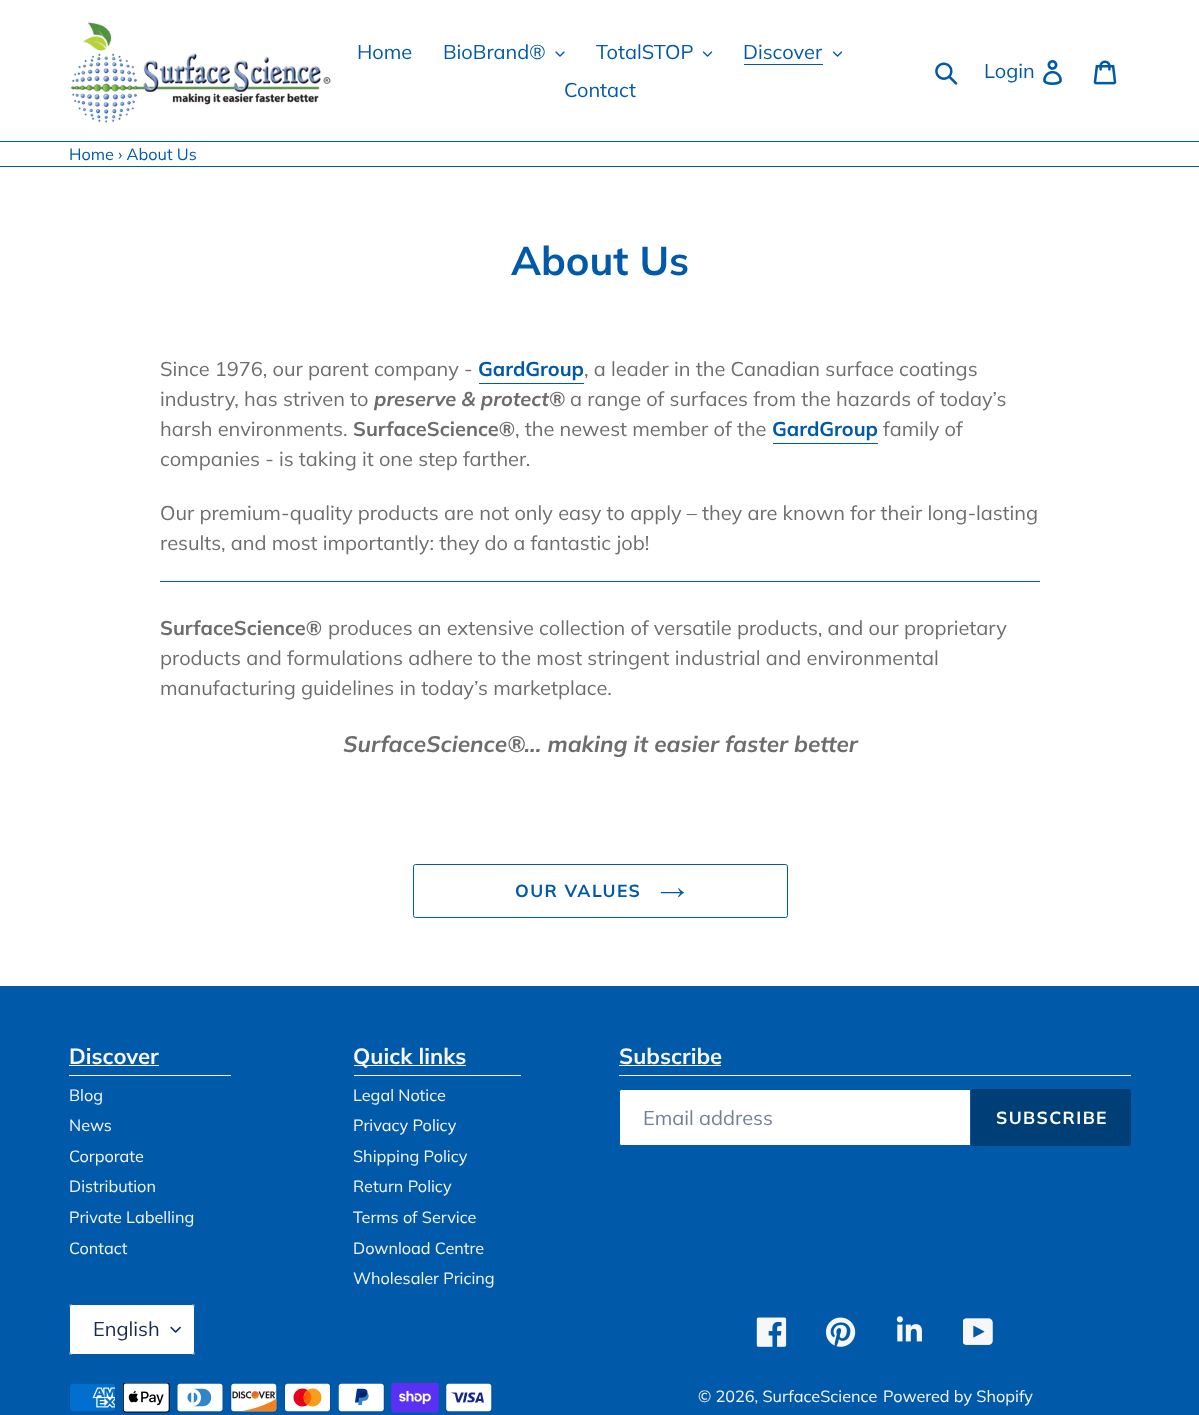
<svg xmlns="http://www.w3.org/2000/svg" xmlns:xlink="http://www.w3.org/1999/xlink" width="1199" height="1415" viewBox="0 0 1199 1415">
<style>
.cls-1{font:20px Muli;fill:#005aa9}
.cls-2{font:16.25px Muli;fill:#005aa9}
.cls-3{font:bold 40px Muli;fill:#005aa9}
.cls-4{font:20px Muli;fill:#6d6d6d}
.cls-5{font:bold 20px Muli;fill:#005aa9}
.cls-6{font:italic bold 20px Muli;fill:#6d6d6d}
.cls-7{font:bold 20px Muli;fill:#6d6d6d}
.cls-8{font:italic bold 22.5px Muli;fill:#6d6d6d}
.cls-9{font:bold 17.5px Muli;letter-spacing:1.4px;fill:#005aa9}
.cls-10{font:bold 22px Muli;fill:#f7f7f7}
.cls-11{font:16.25px Muli;fill:#f7f7f7}
.cls-12{font:20px Muli;fill:#737f96}
.cls-13{font:bold 17.5px Muli;letter-spacing:1.4px;fill:#ffffff}
.cls-14{font:20px Muli;fill:#162950}
</style>
<rect width="100%" height="100%" fill="#ffffff"/>
<rect fill="#005aa9" x="0" y="141" width="1199" height="1"/>
<image xlink:href="image0.png" x="71" y="21" width="260" height="102"/>
<image xlink:href="image1.png" x="555" y="51" width="10" height="6"/>
<image xlink:href="image2.png" x="703" y="51" width="10" height="6"/>
<rect fill="#005aa9" x="744" y="64" width="79" height="1"/>
<image xlink:href="image2.png" x="833" y="51" width="10" height="6"/>
<image xlink:href="image3.png" x="935" y="62" width="23" height="23"/>
<image xlink:href="image4.png" x="1043" y="60" width="19" height="25"/>
<image xlink:href="image5.png" x="1093" y="60" width="24" height="25"/>
<rect fill="#005aa9" x="0" y="166" width="1199" height="1"/>
<rect fill="#005aa9" x="479" y="383" width="105" height="1"/>
<rect fill="#005aa9" x="773" y="443" width="105" height="1"/>
<rect fill="#005aa9" x="160" y="581" width="880" height="1"/>
<rect fill="none" stroke="#005aa9" x="413.5" y="864.5" width="374" height="53" rx="2"/>
<image xlink:href="image6.png" x="660" y="888" width="24" height="9"/>
<rect fill="#005aa9" x="0" y="986" width="1199" height="429"/>
<rect fill="#f7f7f7" x="69" y="1065" width="90" height="1"/>
<rect fill="#f7f7f7" x="69" y="1075" width="162" height="1"/>
<rect fill="#f7f7f7" x="354" y="1065" width="112" height="1"/>
<rect fill="#f7f7f7" x="354" y="1075" width="167" height="1"/>
<rect fill="#f7f7f7" x="619" y="1065" width="102" height="1"/>
<rect fill="#f7f7f7" x="619" y="1075" width="512" height="1"/>
<path fill="#ffffff" stroke="#005aa9" d="M621.5 1089.5H970.5V1145.5H621.5C620.5 1145.5 619.5 1144.5 619.5 1143.5V1091.5C619.5 1090.5 620.5 1089.5 621.5 1089.5Z"/>
<path fill="#003f76" d="M971 1089H1128.5C1130 1089 1131 1090 1131 1091.5V1143.5C1131 1145 1130 1146 1128.5 1146H971Z"/>
<rect fill="#ffffff" x="69" y="1304" width="126" height="51" rx="2.5"/>
<image xlink:href="image7.png" x="170" y="1326" width="11" height="7"/>
<rect fill="none" stroke="#005aa9" x="69.5" y="1304.5" width="125" height="50" rx="2"/>
<image xlink:href="image8.png" x="756" y="1317" width="31" height="30"/>
<image xlink:href="image9.png" x="825" y="1317" width="31" height="30"/>
<image xlink:href="image10.png" x="896" y="1316" width="26" height="26"/>
<image xlink:href="image11.png" x="963" y="1318" width="30" height="27"/>
<image xlink:href="image12.png" x="69" y="1383" width="47" height="30"/>
<image xlink:href="image13.png" x="123" y="1383" width="47" height="30"/>
<image xlink:href="image14.png" x="176" y="1383" width="48" height="30"/>
<image xlink:href="image15.png" x="230" y="1383" width="48" height="30"/>
<image xlink:href="image16.png" x="284" y="1383" width="47" height="30"/>
<image xlink:href="image17.png" x="338" y="1383" width="47" height="30"/>
<image xlink:href="image18.png" x="391" y="1383" width="48" height="30"/>
<image xlink:href="image19.png" x="445" y="1383" width="48" height="30"/>
<text class="cls-1" x="357" y="59">Home</text>
<text class="cls-1" x="443" y="59">BioBrand®</text>
<text class="cls-1" x="596" y="59">TotalSTOP</text>
<text class="cls-1" x="743" y="59">Discover</text>
<text class="cls-1" x="564" y="97">Contact</text>
<text class="cls-1" x="984" y="78">Login</text>
<text class="cls-2" x="69" y="160">Home › About Us</text>
<text class="cls-3" x="511" y="275">About Us</text>
<text class="cls-4" x="160" y="376">Since 1976, our parent company -</text>
<text class="cls-5" x="478" y="376">GardGroup</text>
<text class="cls-4" x="584" y="376">, a leader in the Canadian surface coatings</text>
<text class="cls-4" x="160" y="406">industry, has striven to</text>
<text class="cls-6" x="374" y="406">preserve &amp; protect®</text>
<text class="cls-4" x="570" y="406">a range of surfaces from the hazards of today’s</text>
<text class="cls-4" x="160" y="436">harsh environments.</text>
<text class="cls-7" x="353" y="436">SurfaceScience®</text>
<text class="cls-4" x="515" y="436">, the newest member of the</text>
<text class="cls-5" x="772" y="436">GardGroup</text>
<text class="cls-4" x="883" y="436">family of</text>
<text class="cls-4" x="160" y="466">companies - is taking it one step farther.</text>
<text class="cls-4"><tspan x="160" y="520">Our premium-quality products are not only easy to apply – they are known for their long-lasting</tspan><tspan x="160" y="550">results, and most importantly: they do a fantastic job!</tspan></text>
<text class="cls-7" x="160" y="635">SurfaceScience®</text>
<text class="cls-4" x="328" y="635">produces an extensive collection of versatile products, and our proprietary</text>
<text class="cls-4"><tspan x="160" y="665">products and formulations adhere to the most stringent industrial and environmental</tspan><tspan x="160" y="695">manufacturing guidelines in today’s marketplace.</tspan></text>
<text class="cls-8" x="343" y="752">SurfaceScience®... making it easier faster better</text>
<text class="cls-9" x="515" y="897">OUR VALUES</text>
<text class="cls-10" x="69" y="1064">Discover</text>
<text class="cls-11"><tspan x="69" y="1101">Blog</tspan><tspan x="69" y="1131">News</tspan><tspan x="69" y="1162">Corporate</tspan><tspan x="69" y="1192">Distribution</tspan><tspan x="69" y="1223">Private Labelling</tspan><tspan x="69" y="1254">Contact</tspan></text>
<text class="cls-10" x="353" y="1064">Quick links</text>
<text class="cls-11"><tspan x="353" y="1101">Legal Notice</tspan><tspan x="353" y="1131">Privacy Policy</tspan><tspan x="353" y="1162">Shipping Policy</tspan><tspan x="353" y="1192">Return Policy</tspan><tspan x="353" y="1223">Terms of Service</tspan><tspan x="353" y="1254">Download Centre</tspan><tspan x="353" y="1284">Wholesaler Pricing</tspan></text>
<text class="cls-10" x="619" y="1064">Subscribe</text>
<text class="cls-12" x="643" y="1125">Email address</text>
<text class="cls-13" x="996" y="1124">SUBSCRIBE</text>
<text class="cls-14" x="93" y="1336">English</text>
<text class="cls-11" x="698" y="1402">© 2026, SurfaceScience</text>
<text class="cls-11" x="883" y="1402">Powered by Shopify</text>
</svg>
